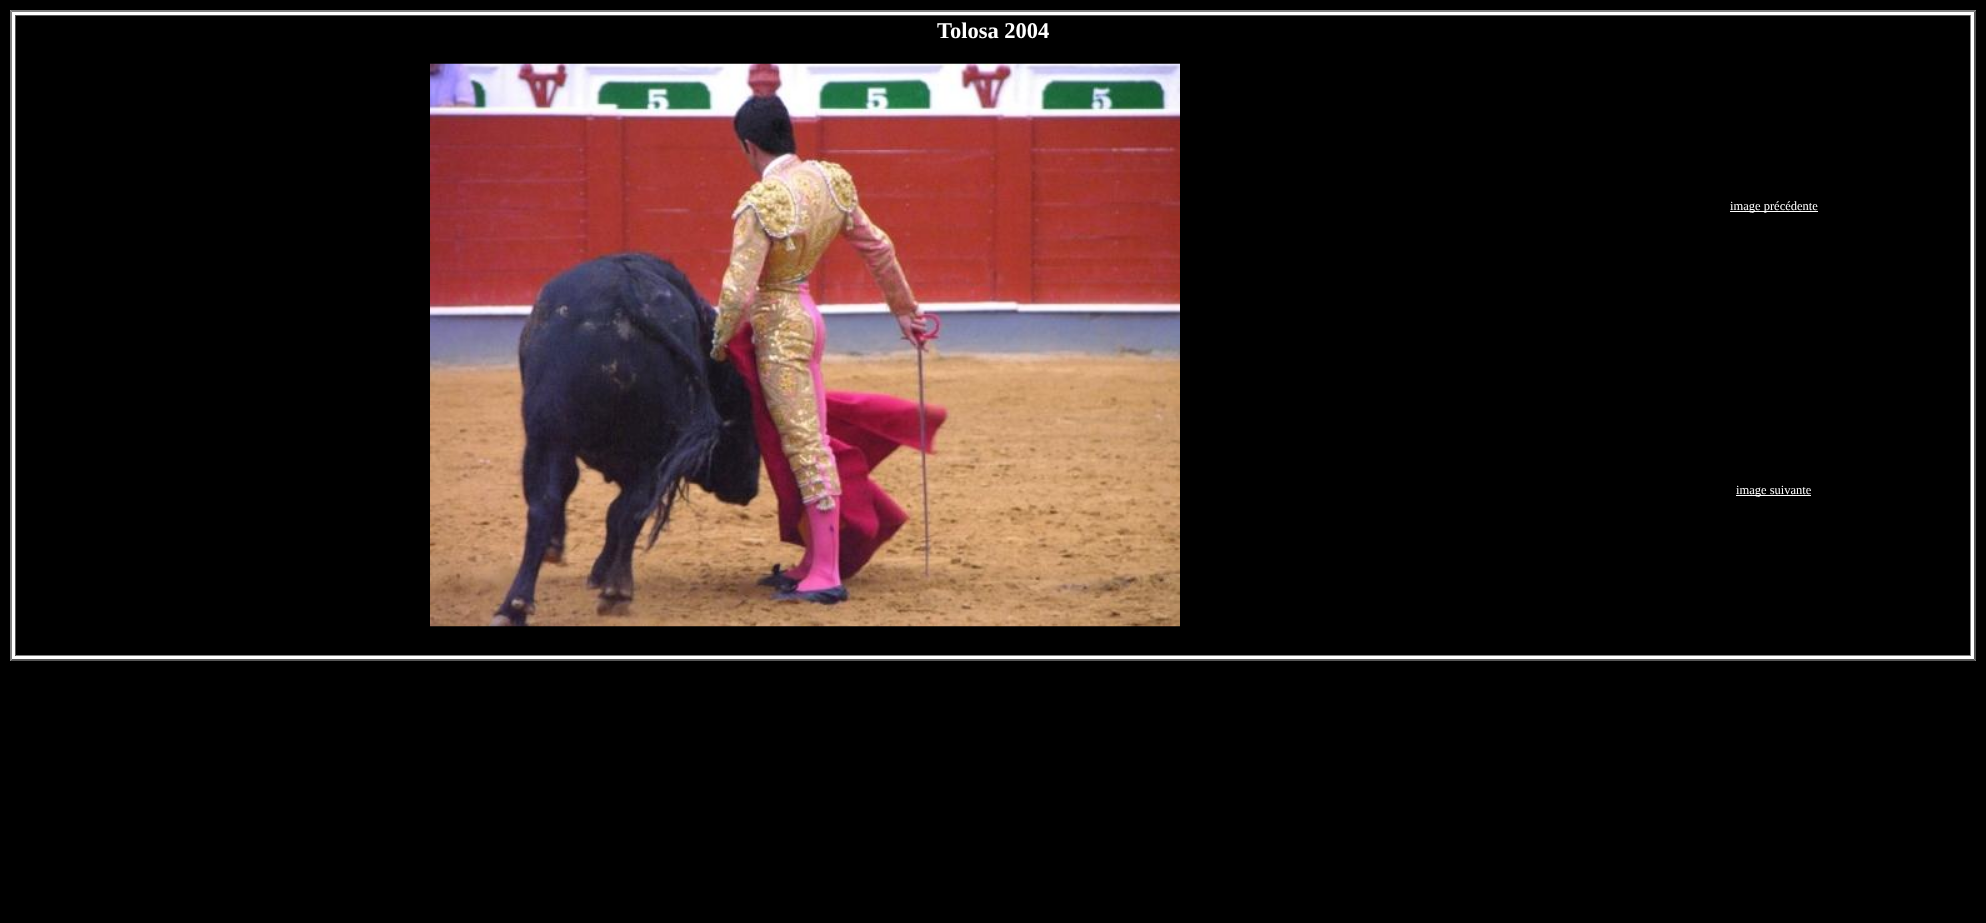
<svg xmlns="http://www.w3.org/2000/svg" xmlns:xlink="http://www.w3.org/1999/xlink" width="1986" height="923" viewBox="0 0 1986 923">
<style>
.cls-1{font:bold 22.5px Liberation Serif;fill:#ffffff}
.cls-2{font:12.5px Liberation Serif;fill:#ffffff}
</style>
<rect width="100%" height="100%" fill="#000000"/>
<rect fill="#ffffff" x="10" y="10" width="1966" height="651"/>
<path fill="#808080" d="M10 10H1976L1974 12H12Z"/>
<path fill="#555555" d="M1976 10V661L1974 659V12Z"/>
<path fill="#555555" d="M1976 661H10L12 659H1974Z"/>
<path fill="#808080" d="M10 661V10L12 12V659Z"/>
<rect fill="#000000" x="16" y="16" width="1954" height="639"/>
<rect fill="#555555" x="15" y="15" width="1956" height="1"/>
<rect fill="#808080" x="1970" y="15" width="1" height="641"/>
<rect fill="#808080" x="15" y="655" width="1956" height="1"/>
<rect fill="#555555" x="15" y="15" width="1" height="641"/>
<image xlink:href="image0.png" x="430" y="63" width="750" height="564"/>
<rect fill="#ffffff" x="1730" y="211" width="88" height="1"/>
<rect fill="#ffffff" x="1736" y="495" width="75" height="1"/>
<text class="cls-1" x="937" y="38">Tolosa 2004</text>
<text class="cls-2" x="1730" y="210">image précédente</text>
<text class="cls-2" x="1736" y="494">image suivante</text>
</svg>
